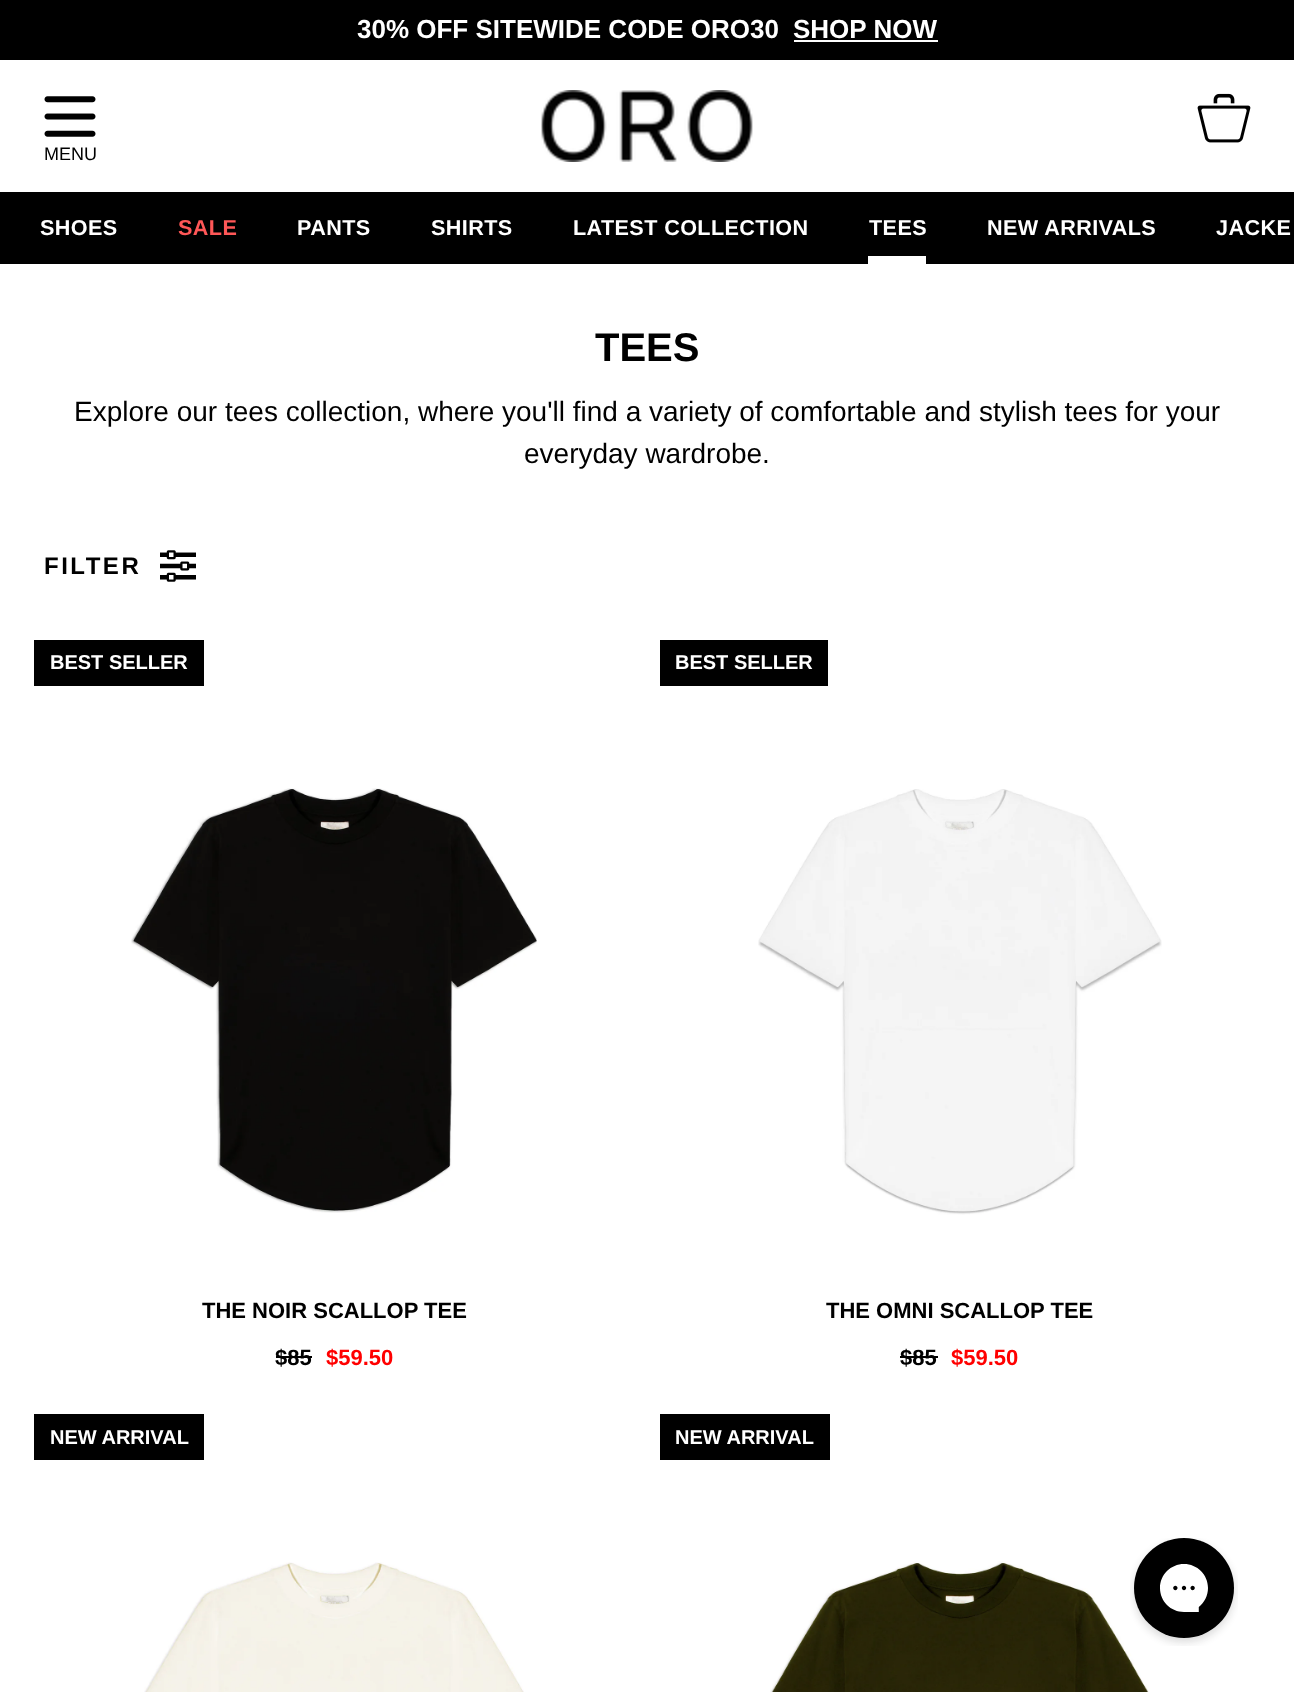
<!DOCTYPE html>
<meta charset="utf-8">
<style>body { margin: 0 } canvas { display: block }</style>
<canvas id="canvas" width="1294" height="1692"></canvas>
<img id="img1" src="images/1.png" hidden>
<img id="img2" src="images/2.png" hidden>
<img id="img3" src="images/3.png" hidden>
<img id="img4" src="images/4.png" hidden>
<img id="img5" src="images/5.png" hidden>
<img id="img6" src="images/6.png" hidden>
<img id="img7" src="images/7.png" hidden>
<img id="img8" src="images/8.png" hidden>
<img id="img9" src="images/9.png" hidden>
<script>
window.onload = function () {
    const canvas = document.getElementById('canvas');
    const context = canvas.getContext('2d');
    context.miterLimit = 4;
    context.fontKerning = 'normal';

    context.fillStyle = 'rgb(255, 255, 255)';
    context.fillRect(0, 0, 1294, 1692);
    context.fillStyle = 'rgb(0, 0, 0)';
    context.fillRect(0, 0, 1294, 60);
    context.fillStyle = 'rgb(255, 255, 255)';
    context.fillRect(794, 40, 144, 2);
    context.drawImage(document.getElementById('img1'), 541, 90, 212, 72);
    context.drawImage(document.getElementById('img2'), 1197, 93, 54, 50);
    context.drawImage(document.getElementById('img3'), 44, 96, 52, 41);
    context.fillStyle = 'rgb(0, 0, 0)';
    context.fillRect(0, 192, 1294, 72);
    context.fillStyle = 'rgb(255, 255, 255)';
    context.fillRect(868, 256, 58, 8);
    context.drawImage(document.getElementById('img4'), 160, 550, 36, 32);
    context.fillStyle = 'rgb(0, 0, 0)';
    context.fillRect(34, 640, 170, 46);
    context.drawImage(document.getElementById('img5'), 131, 788, 406, 425);
    context.fillRect(276, 1356, 36, 2);
    context.fillRect(660, 640, 168, 46);
    context.drawImage(document.getElementById('img6'), 758, 789, 404, 426);
    context.fillRect(900, 1356, 38, 2);
    context.fillRect(34, 1414, 170, 46);
    context.drawImage(document.getElementById('img7'), 144, 1562, 380, 130);
    context.fillRect(660, 1414, 170, 46);
    context.drawImage(document.getElementById('img8'), 770, 1561, 379, 131);
    context.drawImage(document.getElementById('img9'), 1130, 1538, 108, 108);
    context.font = 'bold 26px Liberation Sans';
    context.fillStyle = 'rgb(255, 255, 255)';
    context.fillText('30% OFF SITEWIDE CODE ORO30', 357, 38);
    context.fillText('SHOP NOW', 793, 38);
    context.font = '18px Liberation Sans';
    context.fillStyle = 'rgb(0, 0, 0)';
    context.fillText('MENU', 44, 160);
    context.letterSpacing = '0.4px';
    context.font = 'bold 21.6px Liberation Sans';
    context.fillStyle = 'rgb(255, 255, 255)';
    context.fillText('SHOES', 40, 235);
    context.fillStyle = 'rgb(255, 87, 87)';
    context.fillText('SALE', 178, 235);
    context.fillStyle = 'rgb(255, 255, 255)';
    context.fillText('PANTS', 297, 235);
    context.fillText('SHIRTS', 431, 235);
    context.fillText('LATEST COLLECTION', 573, 235);
    context.fillText('TEES', 869, 235);
    context.fillText('NEW ARRIVALS', 987, 235);
    context.fillText('JACKE', 1216, 235);
    context.letterSpacing = '0px';
    context.font = 'bold 40px Liberation Sans';
    context.fillStyle = 'rgb(0, 0, 0)';
    context.fillText('TEES', 595, 361);
    context.font = '28px Liberation Sans';
    context.fillText('Explore our tees collection, where you\'ll find a variety of comfortable and stylish tees for your', 74, 421);
    context.fillText('everyday wardrobe.', 524, 463);
    context.letterSpacing = '2.5px';
    context.font = 'bold 24px Liberation Sans';
    context.fillText('FILTER', 44, 574);
    context.letterSpacing = '0px';
    context.font = 'bold 20px Liberation Sans';
    context.fillStyle = 'rgb(255, 255, 255)';
    context.fillText('BEST SELLER', 50, 669);
    context.font = 'bold 22px Liberation Sans';
    context.fillStyle = 'rgb(0, 0, 0)';
    context.fillText('THE NOIR SCALLOP TEE', 202, 1318);
    context.fillText('$85', 275, 1365);
    context.fillStyle = 'rgb(255, 0, 0)';
    context.fillText('$59.50', 326, 1365);
    context.font = 'bold 20px Liberation Sans';
    context.fillStyle = 'rgb(255, 255, 255)';
    context.fillText('BEST SELLER', 675, 669);
    context.font = 'bold 22px Liberation Sans';
    context.fillStyle = 'rgb(0, 0, 0)';
    context.fillText('THE OMNI SCALLOP TEE', 826, 1318);
    context.fillText('$85', 900, 1365);
    context.fillStyle = 'rgb(255, 0, 0)';
    context.fillText('$59.50', 951, 1365);
    context.font = 'bold 20px Liberation Sans';
    context.fillStyle = 'rgb(255, 255, 255)';
    context.fillText('NEW ARRIVAL', 50, 1444);
    context.fillText('NEW ARRIVAL', 675, 1444);
};
</script>
